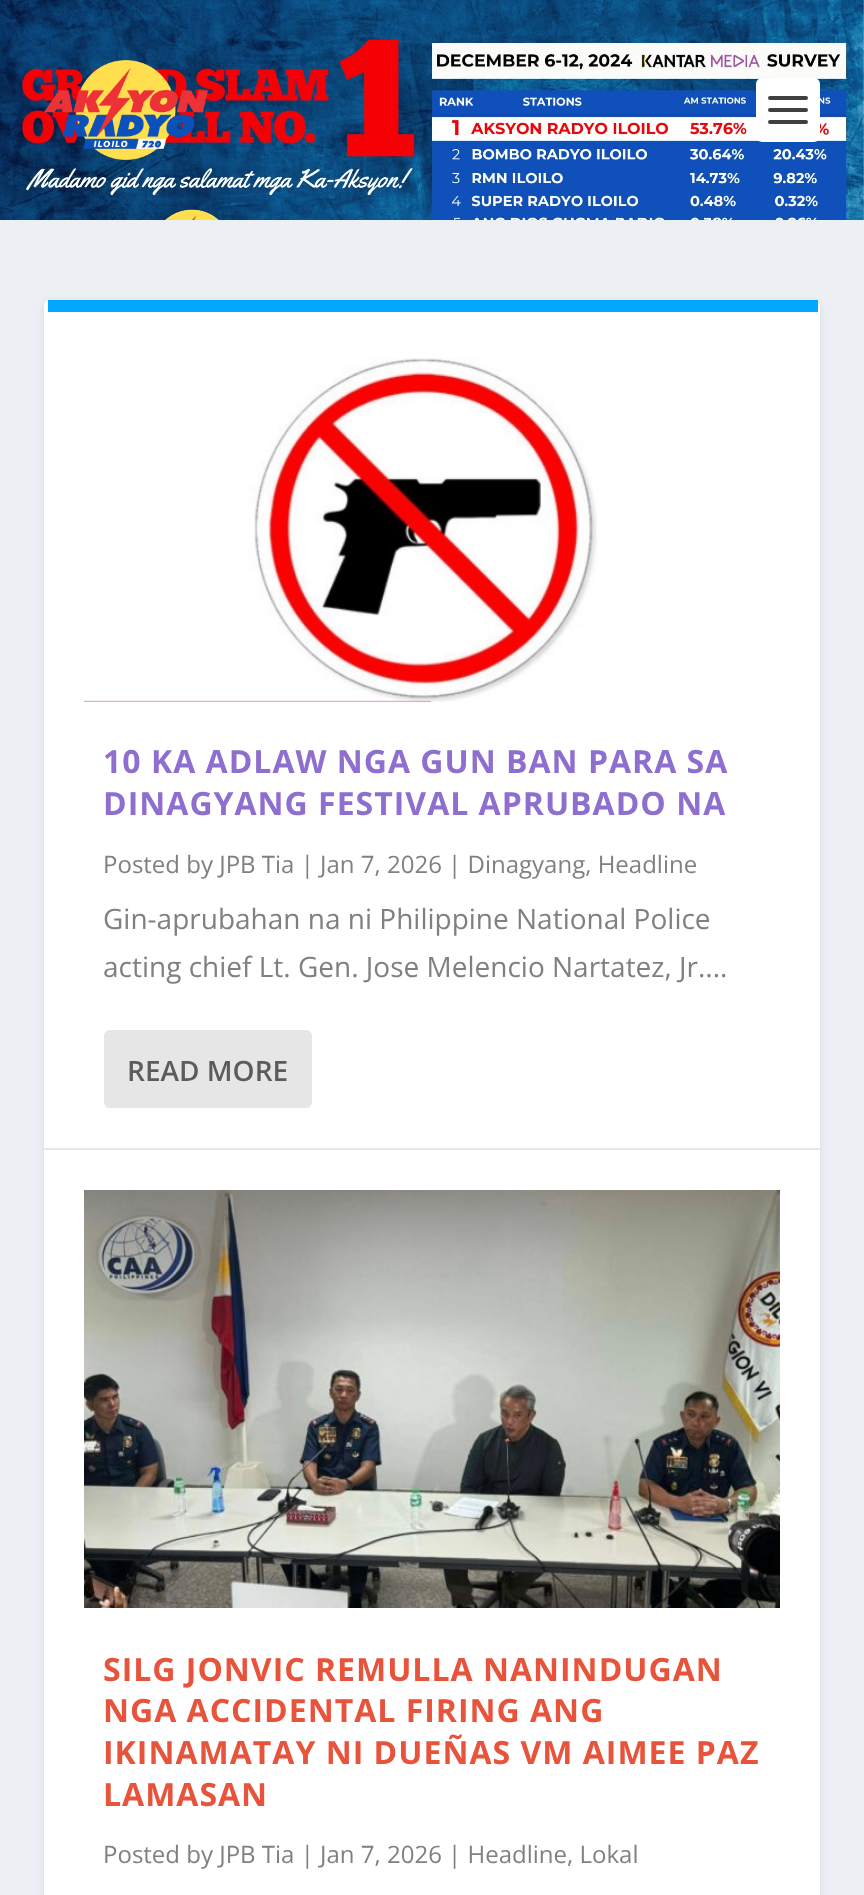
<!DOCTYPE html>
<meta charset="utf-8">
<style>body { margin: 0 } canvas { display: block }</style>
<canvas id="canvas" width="864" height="1895"></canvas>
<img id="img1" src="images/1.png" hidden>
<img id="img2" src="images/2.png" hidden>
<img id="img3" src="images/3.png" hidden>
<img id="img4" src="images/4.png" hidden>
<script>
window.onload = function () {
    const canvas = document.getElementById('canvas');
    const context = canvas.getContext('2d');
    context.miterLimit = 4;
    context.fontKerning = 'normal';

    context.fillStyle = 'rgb(236, 240, 245)';
    context.fillRect(0, 0, 864, 1895);
    context.drawImage(document.getElementById('img1'), 0, 0, 864, 220);
    context.drawImage(document.getElementById('img2'), 44, 60, 164, 100);
    context.fillStyle = 'rgb(255, 255, 255)';
    context.beginPath();
    context.roundRect(756, 78, 64, 64, 6);
    context.fill();
    context.fillStyle = 'rgb(64, 64, 64)';
    context.beginPath();
    context.roundRect(768, 96, 40, 4, 2);
    context.fill();
    context.beginPath();
    context.roundRect(768, 108, 40, 4, 2);
    context.fill();
    context.beginPath();
    context.roundRect(768, 120, 40, 4, 2);
    context.fill();
    context.fillStyle = 'rgba(0, 0, 0, 0.1)';
    context.filter = 'blur(3px)';
    context.beginPath();
    context.roundRect(44, 302, 776, 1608, 6);
    context.fill();
    context.filter = 'none';
    context.fillStyle = 'rgb(255, 255, 255)';
    context.beginPath();
    context.roundRect(44, 300, 776, 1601, 6);
    context.fill();
    context.fillStyle = 'rgb(0, 168, 255)';
    context.fillRect(48, 300, 770, 12);
    context.fillStyle = 'rgb(230, 230, 230)';
    context.fillRect(44, 1148, 776, 2);
    context.drawImage(document.getElementById('img3'), 84, 358, 514, 344);
    context.beginPath();
    context.roundRect(104, 1030, 208, 78, 6);
    context.fill();
    context.drawImage(document.getElementById('img4'), 84, 1190, 696, 418);
    context.letterSpacing = '1px';
    context.font = 'bold 32px Open Sans';
    context.fillStyle = 'rgb(142, 110, 207)';
    context.fillText('10 KA ADLAW NGA GUN BAN PARA SA', 103, 773);
    context.fillText('DINAGYANG FESTIVAL APRUBADO NA', 103, 815);
    context.letterSpacing = '0px';
    context.font = '24px Open Sans';
    context.fillStyle = 'rgb(128, 128, 128)';
    context.fillText('Posted by JPB Tia | Jan 7, 2026 | Dinagyang, Headline', 103, 873);
    context.font = '28px Open Sans';
    context.fillText('Gin-aprubahan na ni Philippine National Police', 103, 929);
    context.fillText('acting chief Lt. Gen. Jose Melencio Nartatez, Jr....', 103, 977);
    context.font = '600 28px Open Sans';
    context.fillStyle = 'rgb(92, 92, 92)';
    context.fillText('READ MORE', 127, 1081);
    context.letterSpacing = '1px';
    context.font = 'bold 32px Open Sans';
    context.fillStyle = 'rgb(232, 83, 59)';
    context.fillText('SILG JONVIC REMULLA NANINDUGAN', 103, 1681);
    context.fillText('NGA ACCIDENTAL FIRING ANG', 103, 1722);
    context.fillText('IKINAMATAY NI DUEÑAS VM AIMEE PAZ', 103, 1764);
    context.fillText('LAMASAN', 103, 1806);
    context.letterSpacing = '0px';
    context.font = '24px Open Sans';
    context.fillStyle = 'rgb(128, 128, 128)';
    context.fillText('Posted by JPB Tia | Jan 7, 2026 | Headline, Lokal', 103, 1863);
};
</script>
